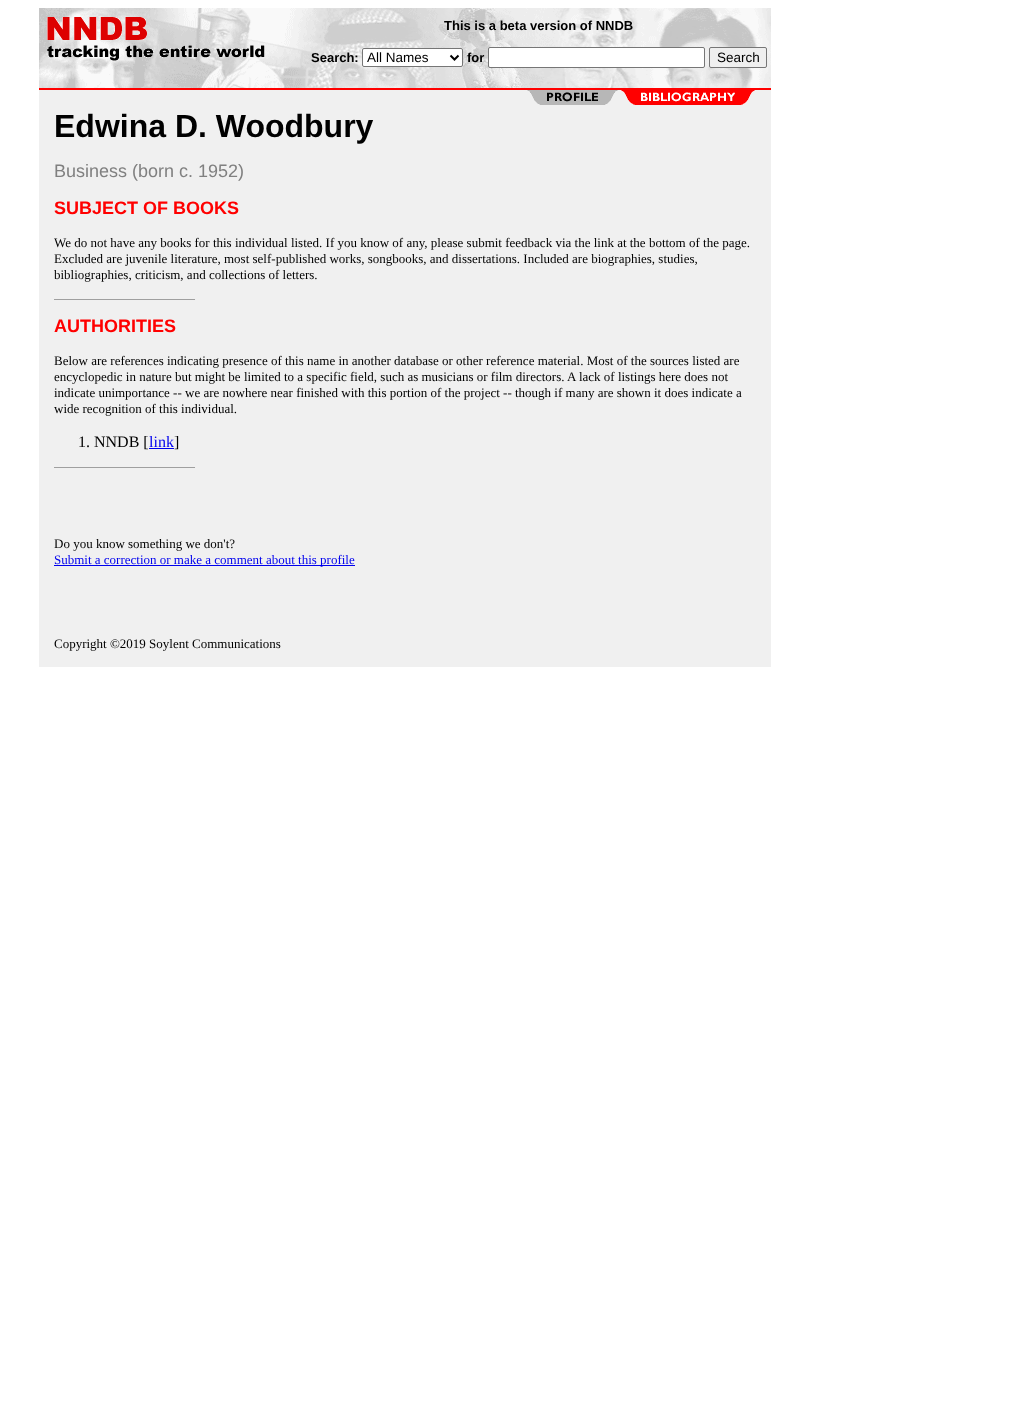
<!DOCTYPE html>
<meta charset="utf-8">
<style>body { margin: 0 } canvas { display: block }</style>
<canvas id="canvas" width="1015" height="1417"></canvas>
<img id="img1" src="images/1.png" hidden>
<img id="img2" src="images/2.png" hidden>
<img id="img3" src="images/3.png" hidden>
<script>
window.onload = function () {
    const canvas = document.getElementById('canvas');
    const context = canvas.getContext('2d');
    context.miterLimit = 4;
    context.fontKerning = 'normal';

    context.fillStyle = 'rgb(255, 255, 255)';
    context.fillRect(0, 0, 1015, 1417);
    context.drawImage(document.getElementById('img1'), 39, 8, 732, 80);
    context.drawImage(document.getElementById('img2'), 47, 17, 218, 44);
    context.beginPath();
    context.roundRect(362.5, 48.5, 100, 18, 1.5);
    context.fill();
    context.strokeStyle = 'rgb(118, 118, 118)';
    context.stroke();
    context.beginPath();
    context.moveTo(450.5, 55.5);
    context.lineTo(454.5, 59.5);
    context.lineTo(458.5, 55.5);
    context.strokeStyle = 'rgb(0, 0, 0)';
    context.lineWidth = 2;
    context.stroke();
    context.beginPath();
    context.roundRect(488.5, 47.5, 216, 20, 1.5);
    context.fill();
    context.strokeStyle = 'rgb(118, 118, 118)';
    context.lineWidth = 1;
    context.stroke();
    context.fillStyle = 'rgb(239, 239, 239)';
    context.beginPath();
    context.roundRect(709.5, 47.5, 57, 20, 1.5);
    context.fill();
    context.stroke();
    context.fillStyle = 'rgb(255, 0, 0)';
    context.fillRect(39, 88, 732, 2);
    context.fillStyle = 'rgb(240, 240, 240)';
    context.fillRect(39, 90, 732, 577);
    context.drawImage(document.getElementById('img3'), 527, 90, 228, 15);
    context.fillStyle = 'rgb(159, 159, 159)';
    context.fillRect(54, 299, 142, 1);
    context.fillStyle = 'rgb(238, 238, 238)';
    context.fillRect(195, 299, 1, 1);
    context.fillStyle = 'rgb(0, 0, 238)';
    context.fillRect(149, 448, 25, 1);
    context.fillStyle = 'rgb(159, 159, 159)';
    context.fillRect(54, 467, 142, 1);
    context.fillStyle = 'rgb(238, 238, 238)';
    context.fillRect(195, 467, 1, 1);
    context.fillStyle = 'rgb(0, 0, 238)';
    context.fillRect(54, 565, 301, 1);
    context.font = 'bold 13px Liberation Sans';
    context.fillStyle = 'rgb(0, 0, 0)';
    context.fillText('This is a beta version of NNDB', 444, 30);
    context.fillText('Search:', 311, 62);
    context.font = '13.5px Liberation Sans';
    context.fillText('All Names', 367, 62);
    context.font = 'bold 13px Liberation Sans';
    context.fillText('for', 467, 62);
    context.font = '13.5px Liberation Sans';
    context.fillText('Search', 717, 62);
    context.font = 'bold 32px Liberation Sans';
    context.fillText('Edwina D. Woodbury', 54, 137);
    context.font = '18px Liberation Sans';
    context.fillStyle = 'rgb(128, 128, 128)';
    context.fillText('Business (born c. 1952)', 54, 177);
    context.font = 'bold 18px Liberation Sans';
    context.fillStyle = 'rgb(255, 0, 0)';
    context.fillText('SUBJECT OF BOOKS', 54, 214);
    context.font = '13px Liberation Serif';
    context.fillStyle = 'rgb(0, 0, 0)';
    context.fillText('We do not have any books for this individual listed. If you know of any, please submit feedback via the link at the bottom of the page.', 54, 247);
    context.fillText('Excluded are juvenile literature, most self-published works, songbooks, and dissertations. Included are biographies, studies,', 54, 263);
    context.fillText('bibliographies, criticism, and collections of letters.', 54, 279);
    context.font = 'bold 18px Liberation Sans';
    context.fillStyle = 'rgb(255, 0, 0)';
    context.fillText('AUTHORITIES', 54, 332);
    context.font = '13px Liberation Serif';
    context.fillStyle = 'rgb(0, 0, 0)';
    context.fillText('Below are references indicating presence of this name in another database or other reference material. Most of the sources listed are', 54, 365);
    context.fillText('encyclopedic in nature but might be limited to a specific field, such as musicians or film directors. A lack of listings here does not', 54, 381);
    context.fillText('indicate unimportance -- we are nowhere near finished with this portion of the project -- though if many are shown it does indicate a', 54, 397);
    context.fillText('wide recognition of this individual.', 54, 413);
    context.font = '16px Liberation Serif';
    context.fillText('1. NNDB [', 78, 447);
    context.fillStyle = 'rgb(0, 0, 238)';
    context.fillText('link', 149, 447);
    context.fillStyle = 'rgb(0, 0, 0)';
    context.fillText(']', 174, 447);
    context.font = '13px Liberation Serif';
    context.fillText('Do you know something we don\'t?', 54, 548);
    context.fillStyle = 'rgb(0, 0, 238)';
    context.fillText('Submit a correction or make a comment about this profile', 54, 564);
    context.fillStyle = 'rgb(0, 0, 0)';
    context.fillText('Copyright ©2019 Soylent Communications', 54, 648);
};
</script>
